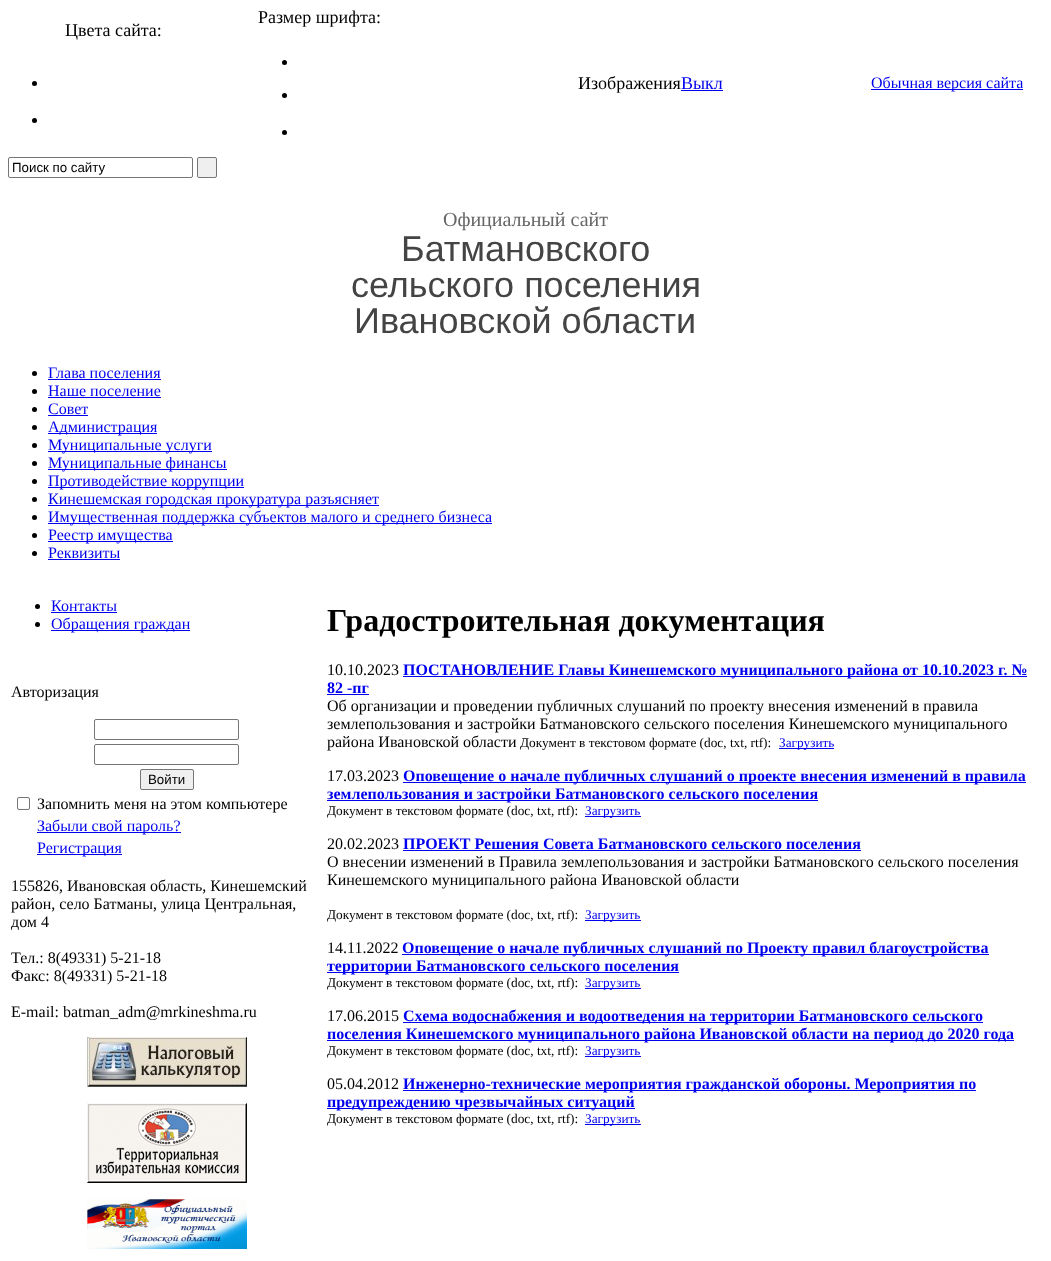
<!DOCTYPE html>
<meta charset="utf-8">
<style>body { margin: 0 } canvas { display: block }</style>
<canvas id="canvas" width="1051" height="1261"></canvas>
<img id="img1" src="images/1.png" hidden>
<img id="img2" src="images/2.png" hidden>
<img id="img3" src="images/3.png" hidden>
<script>
window.onload = function () {
    const canvas = document.getElementById('canvas');
    const context = canvas.getContext('2d');
    context.miterLimit = 4;
    context.fontKerning = 'normal';

    context.fillStyle = 'rgb(255, 255, 255)';
    context.fillRect(0, 0, 1051, 1261);
    context.fillStyle = 'rgb(0, 0, 0)';
    context.beginPath();
    context.arc(284.5, 62.5, 2.5, 0, 2 * Math.PI);
    context.fill();
    context.beginPath();
    context.arc(284.5, 95.5, 2.5, 0, 2 * Math.PI);
    context.fill();
    context.beginPath();
    context.arc(284.5, 132.5, 2.5, 0, 2 * Math.PI);
    context.fill();
    context.beginPath();
    context.arc(34.5, 83.5, 2.5, 0, 2 * Math.PI);
    context.fill();
    context.beginPath();
    context.arc(34.5, 120.5, 2.5, 0, 2 * Math.PI);
    context.fill();
    context.fillStyle = 'rgb(0, 0, 238)';
    context.fillRect(681, 90, 42, 1);
    context.fillRect(871, 89, 152, 1);
    context.beginPath();
    context.roundRect(8.5, 157.5, 184, 20, 1.5);
    context.strokeStyle = 'rgb(118, 118, 118)';
    context.stroke();
    context.fillStyle = 'rgb(239, 239, 239)';
    context.beginPath();
    context.roundRect(197.5, 157.5, 19, 20, 1.5);
    context.fill();
    context.stroke();
    context.fillStyle = 'rgb(0, 0, 0)';
    context.beginPath();
    context.arc(34.5, 373.5, 2.5, 0, 2 * Math.PI);
    context.fill();
    context.fillStyle = 'rgb(0, 0, 238)';
    context.fillRect(48, 379, 113, 1);
    context.fillStyle = 'rgb(0, 0, 0)';
    context.beginPath();
    context.arc(34.5, 391.5, 2.5, 0, 2 * Math.PI);
    context.fill();
    context.fillStyle = 'rgb(0, 0, 238)';
    context.fillRect(48, 397, 113, 1);
    context.fillStyle = 'rgb(0, 0, 0)';
    context.beginPath();
    context.arc(34.5, 409.5, 2.5, 0, 2 * Math.PI);
    context.fill();
    context.fillStyle = 'rgb(0, 0, 238)';
    context.fillRect(48, 415, 40, 1);
    context.fillStyle = 'rgb(0, 0, 0)';
    context.beginPath();
    context.arc(34.5, 427.5, 2.5, 0, 2 * Math.PI);
    context.fill();
    context.fillStyle = 'rgb(0, 0, 238)';
    context.fillRect(48, 433, 109, 1);
    context.fillStyle = 'rgb(0, 0, 0)';
    context.beginPath();
    context.arc(34.5, 445.5, 2.5, 0, 2 * Math.PI);
    context.fill();
    context.fillStyle = 'rgb(0, 0, 238)';
    context.fillRect(48, 451, 164, 1);
    context.fillStyle = 'rgb(0, 0, 0)';
    context.beginPath();
    context.arc(34.5, 463.5, 2.5, 0, 2 * Math.PI);
    context.fill();
    context.fillStyle = 'rgb(0, 0, 238)';
    context.fillRect(48, 469, 179, 1);
    context.fillStyle = 'rgb(0, 0, 0)';
    context.beginPath();
    context.arc(34.5, 481.5, 2.5, 0, 2 * Math.PI);
    context.fill();
    context.fillStyle = 'rgb(0, 0, 238)';
    context.fillRect(48, 487, 196, 1);
    context.fillStyle = 'rgb(0, 0, 0)';
    context.beginPath();
    context.arc(34.5, 499.5, 2.5, 0, 2 * Math.PI);
    context.fill();
    context.fillStyle = 'rgb(0, 0, 238)';
    context.fillRect(48, 505, 331, 1);
    context.fillStyle = 'rgb(0, 0, 0)';
    context.beginPath();
    context.arc(34.5, 517.5, 2.5, 0, 2 * Math.PI);
    context.fill();
    context.fillStyle = 'rgb(0, 0, 238)';
    context.fillRect(48, 523, 444, 1);
    context.fillStyle = 'rgb(0, 0, 0)';
    context.beginPath();
    context.arc(34.5, 535.5, 2.5, 0, 2 * Math.PI);
    context.fill();
    context.fillStyle = 'rgb(0, 0, 238)';
    context.fillRect(48, 541, 125, 1);
    context.fillStyle = 'rgb(0, 0, 0)';
    context.beginPath();
    context.arc(34.5, 553.5, 2.5, 0, 2 * Math.PI);
    context.fill();
    context.fillStyle = 'rgb(0, 0, 238)';
    context.fillRect(48, 559, 72, 1);
    context.fillStyle = 'rgb(0, 0, 0)';
    context.beginPath();
    context.arc(37.5, 606.5, 2.5, 0, 2 * Math.PI);
    context.fill();
    context.fillStyle = 'rgb(0, 0, 238)';
    context.fillRect(51, 612, 66, 1);
    context.fillStyle = 'rgb(0, 0, 0)';
    context.beginPath();
    context.arc(37.5, 624.5, 2.5, 0, 2 * Math.PI);
    context.fill();
    context.fillStyle = 'rgb(0, 0, 238)';
    context.fillRect(51, 630, 139, 1);
    context.beginPath();
    context.roundRect(94.5, 719.5, 144, 20, 1.5);
    context.stroke();
    context.beginPath();
    context.roundRect(94.5, 744.5, 144, 20, 1.5);
    context.stroke();
    context.fillStyle = 'rgb(239, 239, 239)';
    context.beginPath();
    context.roundRect(140.5, 769.5, 53, 20, 1.5);
    context.fill();
    context.stroke();
    context.beginPath();
    context.roundRect(17.5, 797.5, 12, 12, 1.5);
    context.stroke();
    context.fillStyle = 'rgb(0, 0, 238)';
    context.fillRect(37, 832, 144, 1);
    context.fillRect(37, 854, 85, 1);
    context.drawImage(document.getElementById('img1'), 87, 1037, 160, 50);
    context.drawImage(document.getElementById('img2'), 87, 1103, 160, 80);
    context.drawImage(document.getElementById('img3'), 87, 1199, 160, 50);
    context.fillRect(403, 676, 624, 1);
    context.fillRect(327, 694, 42, 1);
    context.fillRect(779, 748, 55, 1);
    context.fillRect(403, 782, 623, 1);
    context.fillRect(327, 800, 491, 1);
    context.fillRect(585, 816, 56, 1);
    context.fillRect(403, 850, 458, 1);
    context.fillRect(585, 920, 56, 1);
    context.fillRect(402, 954, 587, 1);
    context.fillRect(327, 972, 352, 1);
    context.fillRect(585, 988, 56, 1);
    context.fillRect(403, 1022, 580, 1);
    context.fillRect(327, 1040, 687, 1);
    context.fillRect(585, 1056, 56, 1);
    context.fillRect(403, 1090, 573, 1);
    context.fillRect(327, 1108, 308, 1);
    context.fillRect(585, 1124, 56, 1);
    context.font = '18px Liberation Serif';
    context.fillStyle = 'rgb(0, 0, 0)';
    context.fillText('Размер шрифта:', 258, 23);
    context.fillText('Цвета сайта:', 65, 36);
    context.fillText('Изображения', 578, 89);
    context.fillStyle = 'rgb(0, 0, 238)';
    context.fillText('Выкл', 681, 89);
    context.font = '16px Liberation Serif';
    context.fillText('Обычная версия сайта', 871, 88);
    context.font = '13.3px Liberation Sans';
    context.fillStyle = 'rgb(0, 0, 0)';
    context.fillText('Поиск по сайту', 12, 172);
    context.font = '20px Liberation Serif';
    context.fillStyle = 'rgb(102, 102, 102)';
    context.fillText('Официальный сайт', 443, 226);
    context.font = '36px Liberation Sans';
    context.fillStyle = 'rgb(68, 68, 68)';
    context.fillText('Батмановского', 401, 261);
    context.fillText('сельского поселения', 351, 297);
    context.fillText('Ивановской области', 354, 333);
    context.font = '16px Liberation Serif';
    context.fillStyle = 'rgb(0, 0, 238)';
    context.fillText('Глава поселения', 48, 378);
    context.fillText('Наше поселение', 48, 396);
    context.fillText('Совет', 48, 414);
    context.fillText('Администрация', 48, 432);
    context.fillText('Муниципальные услуги', 48, 450);
    context.fillText('Муниципальные финансы', 48, 468);
    context.fillText('Противодействие коррупции', 48, 486);
    context.fillText('Кинешемская городская прокуратура разъясняет', 48, 504);
    context.fillText('Имущественная поддержка субъектов малого и среднего бизнеса', 48, 522);
    context.fillText('Реестр имущества', 48, 540);
    context.fillText('Реквизиты', 48, 558);
    context.fillText('Контакты', 51, 611);
    context.fillText('Обращения граждан', 51, 629);
    context.fillStyle = 'rgb(0, 0, 0)';
    context.fillText('Авторизация', 11, 697);
    context.font = '13.3px Liberation Sans';
    context.fillText('Войти', 148, 784);
    context.font = '16px Liberation Serif';
    context.fillText('Запомнить меня на этом компьютере', 37, 809);
    context.fillStyle = 'rgb(0, 0, 238)';
    context.fillText('Забыли свой пароль?', 37, 831);
    context.fillText('Регистрация', 37, 853);
    context.fillStyle = 'rgb(0, 0, 0)';
    context.fillText('155826, Ивановская область, Кинешемский', 11, 891);
    context.fillText('район, село Батманы, улица Центральная,', 11, 909);
    context.fillText('дом 4', 11, 927);
    context.fillText('Тел.: 8(49331) 5-21-18', 11, 963);
    context.fillText('Факс: 8(49331) 5-21-18', 11, 981);
    context.fillText('E-mail: batman_adm@mrkineshma.ru', 11, 1017);
    context.font = 'bold 32px Liberation Serif';
    context.fillText('Градостроительная документация', 327, 631);
    context.font = '16px Liberation Serif';
    context.fillText('10.10.2023', 327, 675);
    context.font = 'bold 16px Liberation Serif';
    context.fillStyle = 'rgb(0, 0, 238)';
    context.fillText('ПОСТАНОВЛЕНИЕ Главы Кинешемского муниципального района от 10.10.2023 г. №', 403, 675);
    context.fillText('82 -пг', 327, 693);
    context.font = '16px Liberation Serif';
    context.fillStyle = 'rgb(0, 0, 0)';
    context.fillText('Об организации и проведении публичных слушаний по проекту внесения изменений в правила', 327, 711);
    context.fillText('землепользования и застройки Батмановского сельского поселения Кинешемского муниципального', 327, 729);
    context.fillText('района Ивановской области', 327, 747);
    context.font = '13.3px Liberation Serif';
    context.fillText('Документ в текстовом формате (doc, txt, rtf):', 520, 747);
    context.fillStyle = 'rgb(0, 0, 238)';
    context.fillText('Загрузить', 779, 747);
    context.font = '16px Liberation Serif';
    context.fillStyle = 'rgb(0, 0, 0)';
    context.fillText('17.03.2023', 327, 781);
    context.font = 'bold 16px Liberation Serif';
    context.fillStyle = 'rgb(0, 0, 238)';
    context.fillText('Оповещение о начале публичных слушаний о проекте внесения изменений в правила', 403, 781);
    context.fillText('землепользования и застройки Батмановского сельского поселения', 327, 799);
    context.font = '13.3px Liberation Serif';
    context.fillStyle = 'rgb(0, 0, 0)';
    context.fillText('Документ в текстовом формате (doc, txt, rtf):', 327, 815);
    context.fillStyle = 'rgb(0, 0, 238)';
    context.fillText('Загрузить', 585, 815);
    context.font = '16px Liberation Serif';
    context.fillStyle = 'rgb(0, 0, 0)';
    context.fillText('20.02.2023', 327, 849);
    context.font = 'bold 16px Liberation Serif';
    context.fillStyle = 'rgb(0, 0, 238)';
    context.fillText('ПРОЕКТ Решения Совета Батмановского сельского поселения', 403, 849);
    context.font = '16px Liberation Serif';
    context.fillStyle = 'rgb(0, 0, 0)';
    context.fillText('О внесении изменений в Правила землепользования и застройки Батмановского сельского поселения', 327, 867);
    context.fillText('Кинешемского муниципального района Ивановской области', 327, 885);
    context.font = '13.3px Liberation Serif';
    context.fillText('Документ в текстовом формате (doc, txt, rtf):', 327, 919);
    context.fillStyle = 'rgb(0, 0, 238)';
    context.fillText('Загрузить', 585, 919);
    context.font = '16px Liberation Serif';
    context.fillStyle = 'rgb(0, 0, 0)';
    context.fillText('14.11.2022', 327, 953);
    context.font = 'bold 16px Liberation Serif';
    context.fillStyle = 'rgb(0, 0, 238)';
    context.fillText('Оповещение о начале публичных слушаний по Проекту правил благоустройства', 402, 953);
    context.fillText('территории Батмановского сельского поселения', 327, 971);
    context.font = '13.3px Liberation Serif';
    context.fillStyle = 'rgb(0, 0, 0)';
    context.fillText('Документ в текстовом формате (doc, txt, rtf):', 327, 987);
    context.fillStyle = 'rgb(0, 0, 238)';
    context.fillText('Загрузить', 585, 987);
    context.font = '16px Liberation Serif';
    context.fillStyle = 'rgb(0, 0, 0)';
    context.fillText('17.06.2015', 327, 1021);
    context.font = 'bold 16px Liberation Serif';
    context.fillStyle = 'rgb(0, 0, 238)';
    context.fillText('Схема водоснабжения и водоотведения на территории Батмановского сельского', 403, 1021);
    context.fillText('поселения Кинешемского муниципального района Ивановской области на период до 2020 года', 327, 1039);
    context.font = '13.3px Liberation Serif';
    context.fillStyle = 'rgb(0, 0, 0)';
    context.fillText('Документ в текстовом формате (doc, txt, rtf):', 327, 1055);
    context.fillStyle = 'rgb(0, 0, 238)';
    context.fillText('Загрузить', 585, 1055);
    context.font = '16px Liberation Serif';
    context.fillStyle = 'rgb(0, 0, 0)';
    context.fillText('05.04.2012', 327, 1089);
    context.font = 'bold 16px Liberation Serif';
    context.fillStyle = 'rgb(0, 0, 238)';
    context.fillText('Инженерно-технические мероприятия гражданской обороны. Мероприятия по', 403, 1089);
    context.fillText('предупреждению чрезвычайных ситуаций', 327, 1107);
    context.font = '13.3px Liberation Serif';
    context.fillStyle = 'rgb(0, 0, 0)';
    context.fillText('Документ в текстовом формате (doc, txt, rtf):', 327, 1123);
    context.fillStyle = 'rgb(0, 0, 238)';
    context.fillText('Загрузить', 585, 1123);
};
</script>
